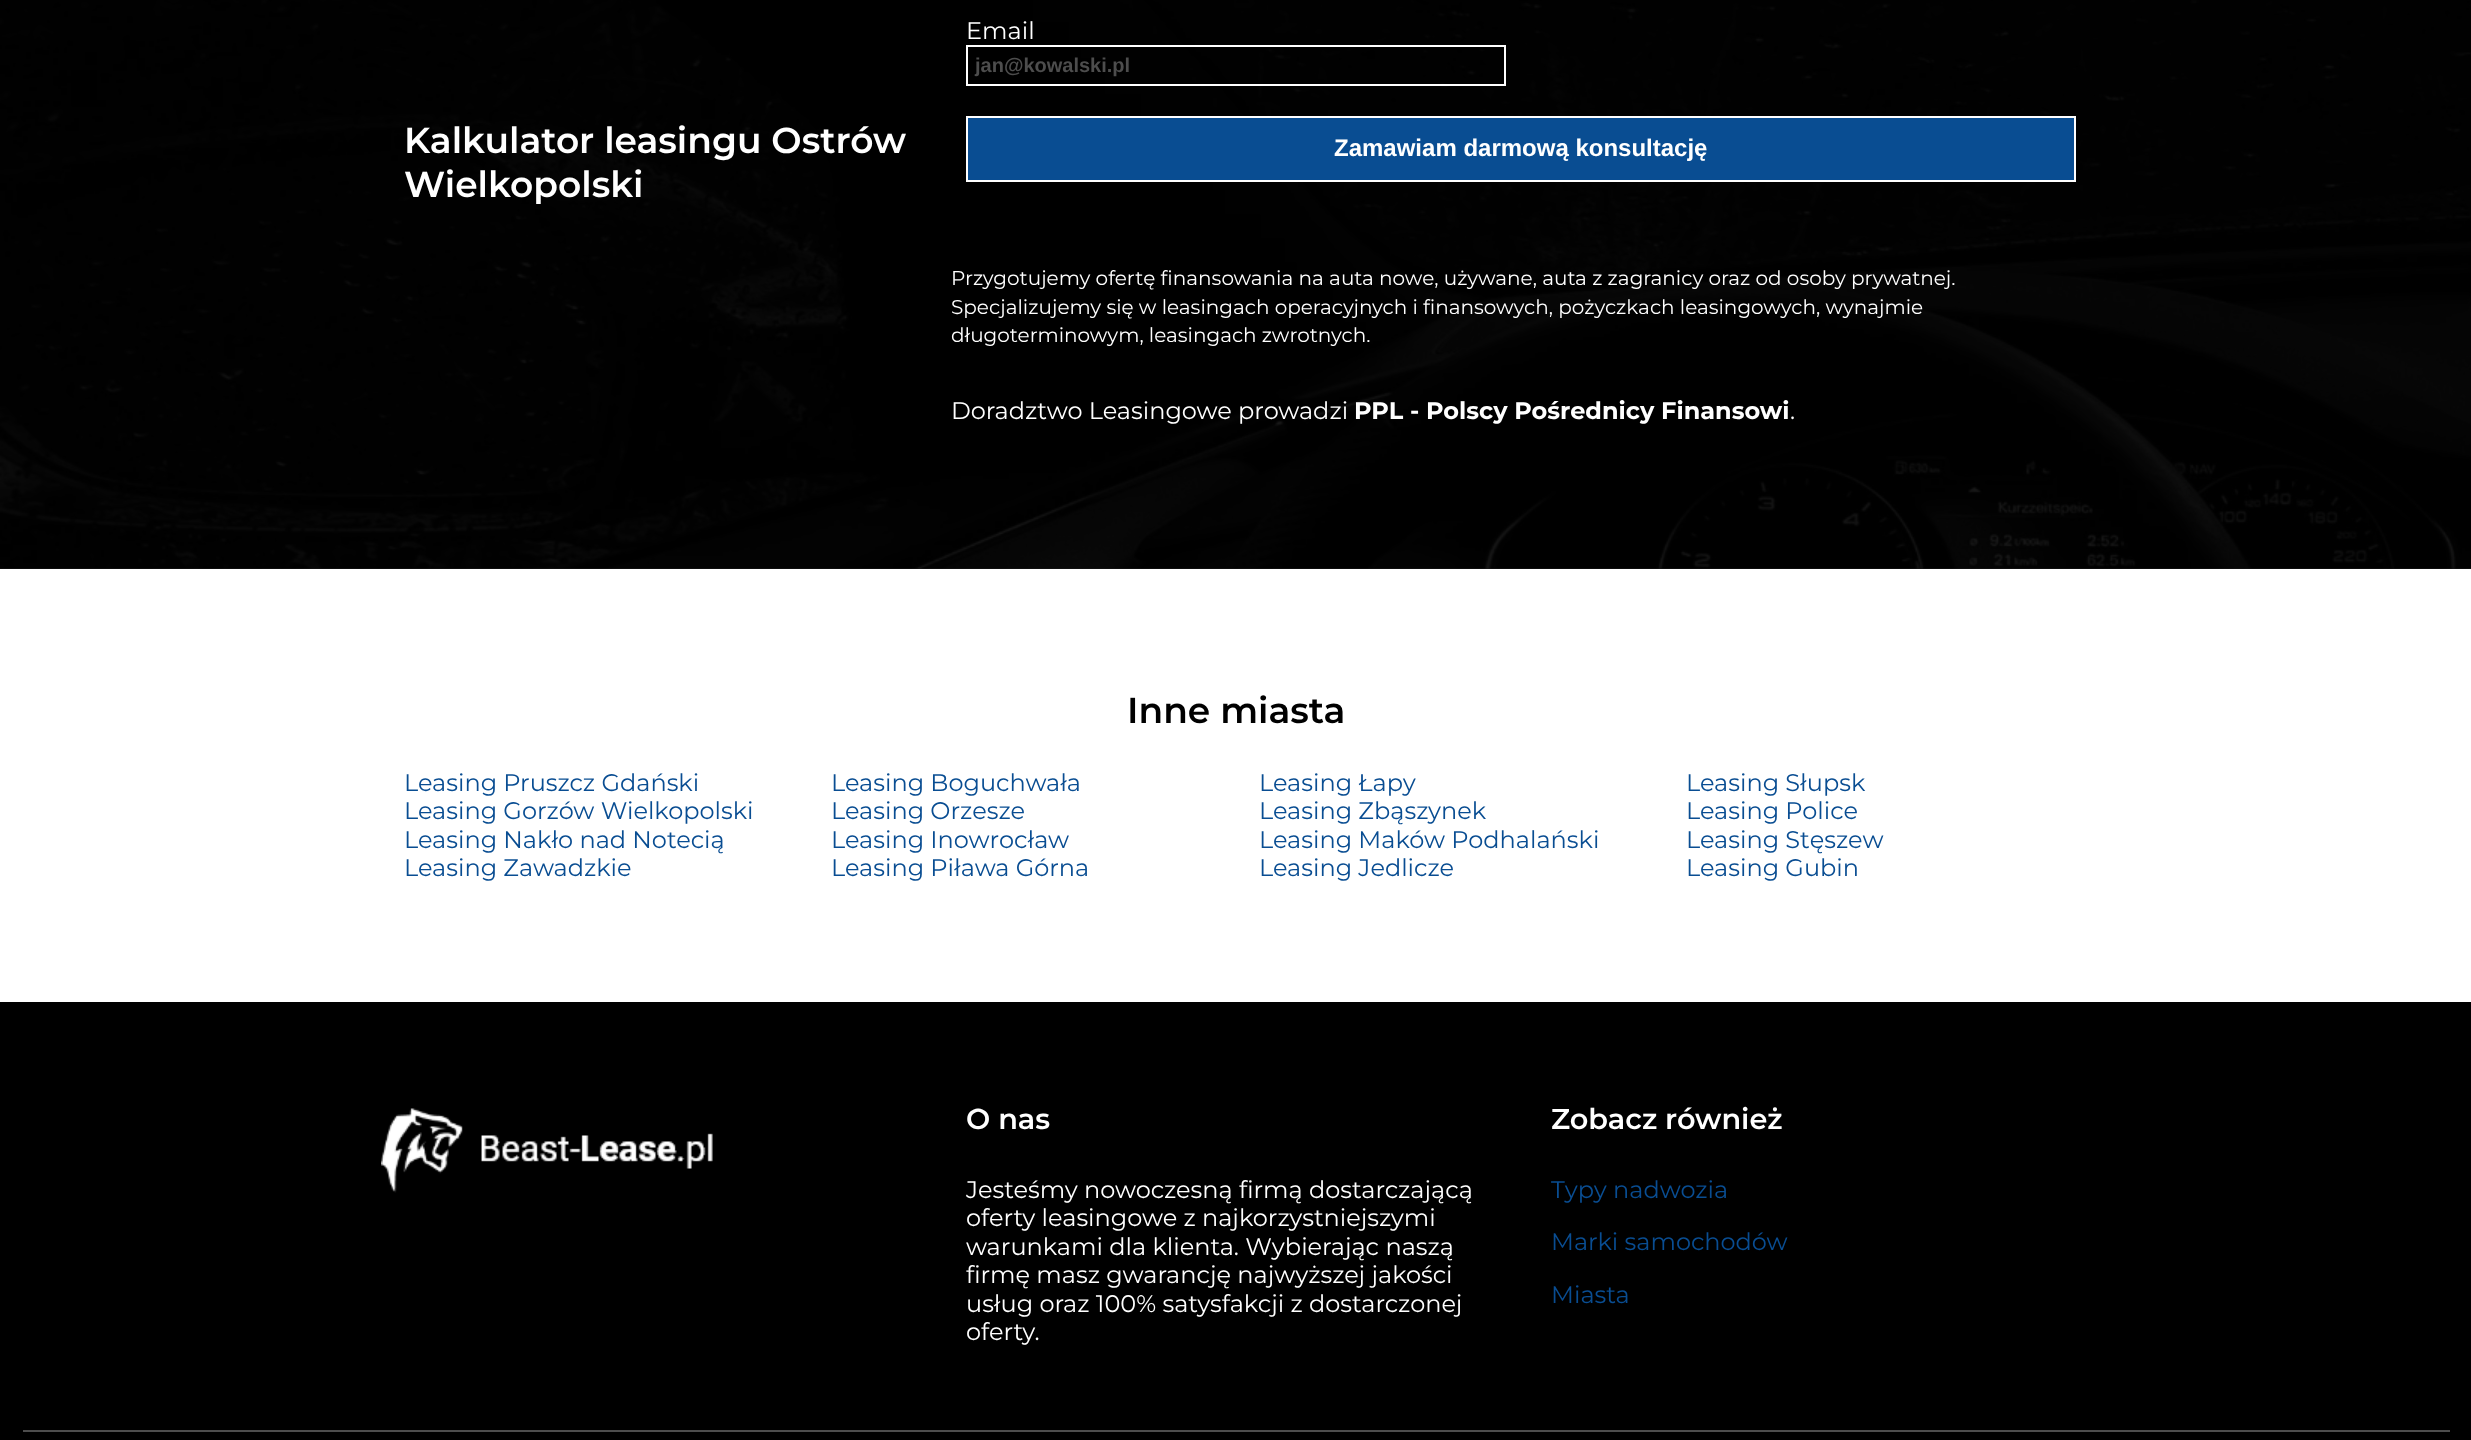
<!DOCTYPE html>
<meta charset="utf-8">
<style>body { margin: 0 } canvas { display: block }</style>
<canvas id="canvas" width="2471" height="1440"></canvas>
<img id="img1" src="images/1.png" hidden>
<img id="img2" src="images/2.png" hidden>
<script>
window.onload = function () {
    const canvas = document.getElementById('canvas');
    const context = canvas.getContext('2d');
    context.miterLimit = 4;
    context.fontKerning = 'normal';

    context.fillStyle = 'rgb(255, 255, 255)';
    context.fillRect(0, 0, 2471, 1440);
    context.fillStyle = 'rgb(25, 25, 25)';
    context.fillRect(0, 568, 2471, 1);
    context.drawImage(document.getElementById('img1'), 0, 0, 2471, 569);
    context.strokeStyle = 'rgb(255, 255, 255)';
    context.lineWidth = 2;
    context.strokeRect(967, 46, 538, 39);
    context.fillStyle = 'rgb(9, 77, 146)';
    context.beginPath();
    context.rect(967, 117, 1108, 64);
    context.fill();
    context.stroke();
    context.fillStyle = 'rgb(0, 0, 0)';
    context.fillRect(0, 1002, 2471, 438);
    context.drawImage(document.getElementById('img2'), 381, 1108, 332, 85);
    context.fillStyle = 'rgb(77, 77, 77)';
    context.fillRect(23, 1430, 2427, 2);
    context.font = '600 36px Montserrat';
    context.fillStyle = 'rgb(255, 255, 255)';
    context.fillText('Kalkulator leasingu Ostrów', 404, 153);
    context.fillText('Wielkopolski', 404, 197);
    context.font = '24px Montserrat';
    context.fillText('Email', 966, 39);
    context.font = 'bold 20px Liberation Sans';
    context.fillStyle = 'rgb(77, 77, 77)';
    context.fillText('jan@kowalski.pl', 975, 72);
    context.font = 'bold 24px Liberation Sans';
    context.fillStyle = 'rgb(255, 255, 255)';
    context.fillText('Zamawiam darmową konsultację', 1334, 156);
    context.font = '20px Montserrat';
    context.fillText('Przygotujemy ofertę finansowania na auta nowe, używane, auta z zagranicy oraz od osoby prywatnej.', 951, 285);
    context.fillText('Specjalizujemy się w leasingach operacyjnych i finansowych, pożyczkach leasingowych, wynajmie', 951, 314);
    context.fillText('długoterminowym, leasingach zwrotnych.', 951, 342);
    context.font = '24px Montserrat';
    context.fillText('Doradztwo Leasingowe prowadzi', 951, 419);
    context.font = 'bold 24px Montserrat';
    context.fillText('PPL - Polscy Pośrednicy Finansowi', 1354, 419);
    context.font = '24px Montserrat';
    context.fillText('.', 1790, 419);
    context.font = '600 36px Montserrat';
    context.fillStyle = 'rgb(0, 0, 0)';
    context.fillText('Inne miasta', 1127, 723);
    context.font = '24px Montserrat';
    context.fillStyle = 'rgb(9, 77, 146)';
    context.fillText('Leasing Pruszcz Gdański', 404, 791);
    context.fillText('Leasing Boguchwała', 831, 791);
    context.fillText('Leasing Łapy', 1259, 791);
    context.fillText('Leasing Słupsk', 1686, 791);
    context.fillText('Leasing Gorzów Wielkopolski', 404, 819);
    context.fillText('Leasing Orzesze', 831, 819);
    context.fillText('Leasing Zbąszynek', 1259, 819);
    context.fillText('Leasing Police', 1686, 819);
    context.fillText('Leasing Nakło nad Notecią', 404, 848);
    context.fillText('Leasing Inowrocław', 831, 848);
    context.fillText('Leasing Maków Podhalański', 1259, 848);
    context.fillText('Leasing Stęszew', 1686, 848);
    context.fillText('Leasing Zawadzkie', 404, 876);
    context.fillText('Leasing Piława Górna', 831, 876);
    context.fillText('Leasing Jedlicze', 1259, 876);
    context.fillText('Leasing Gubin', 1686, 876);
    context.font = '600 28.75px Montserrat';
    context.fillStyle = 'rgb(255, 255, 255)';
    context.fillText('O nas', 966, 1129);
    context.font = '24px Montserrat';
    context.fillText('Jesteśmy nowoczesną firmą dostarczającą', 966, 1198);
    context.fillText('oferty leasingowe z najkorzystniejszymi', 966, 1226);
    context.fillText('warunkami dla klienta. Wybierając naszą', 966, 1255);
    context.fillText('firmę masz gwarancję najwyższej jakości', 966, 1283);
    context.fillText('usług oraz 100% satysfakcji z dostarczonej', 966, 1312);
    context.fillText('oferty.', 966, 1340);
    context.font = '600 28.75px Montserrat';
    context.fillText('Zobacz również', 1551, 1129);
    context.font = '24px Montserrat';
    context.fillStyle = 'rgb(9, 77, 146)';
    context.fillText('Typy nadwozia', 1551, 1198);
    context.fillText('Marki samochodów', 1551, 1250);
    context.fillText('Miasta', 1551, 1303);
};
</script>
